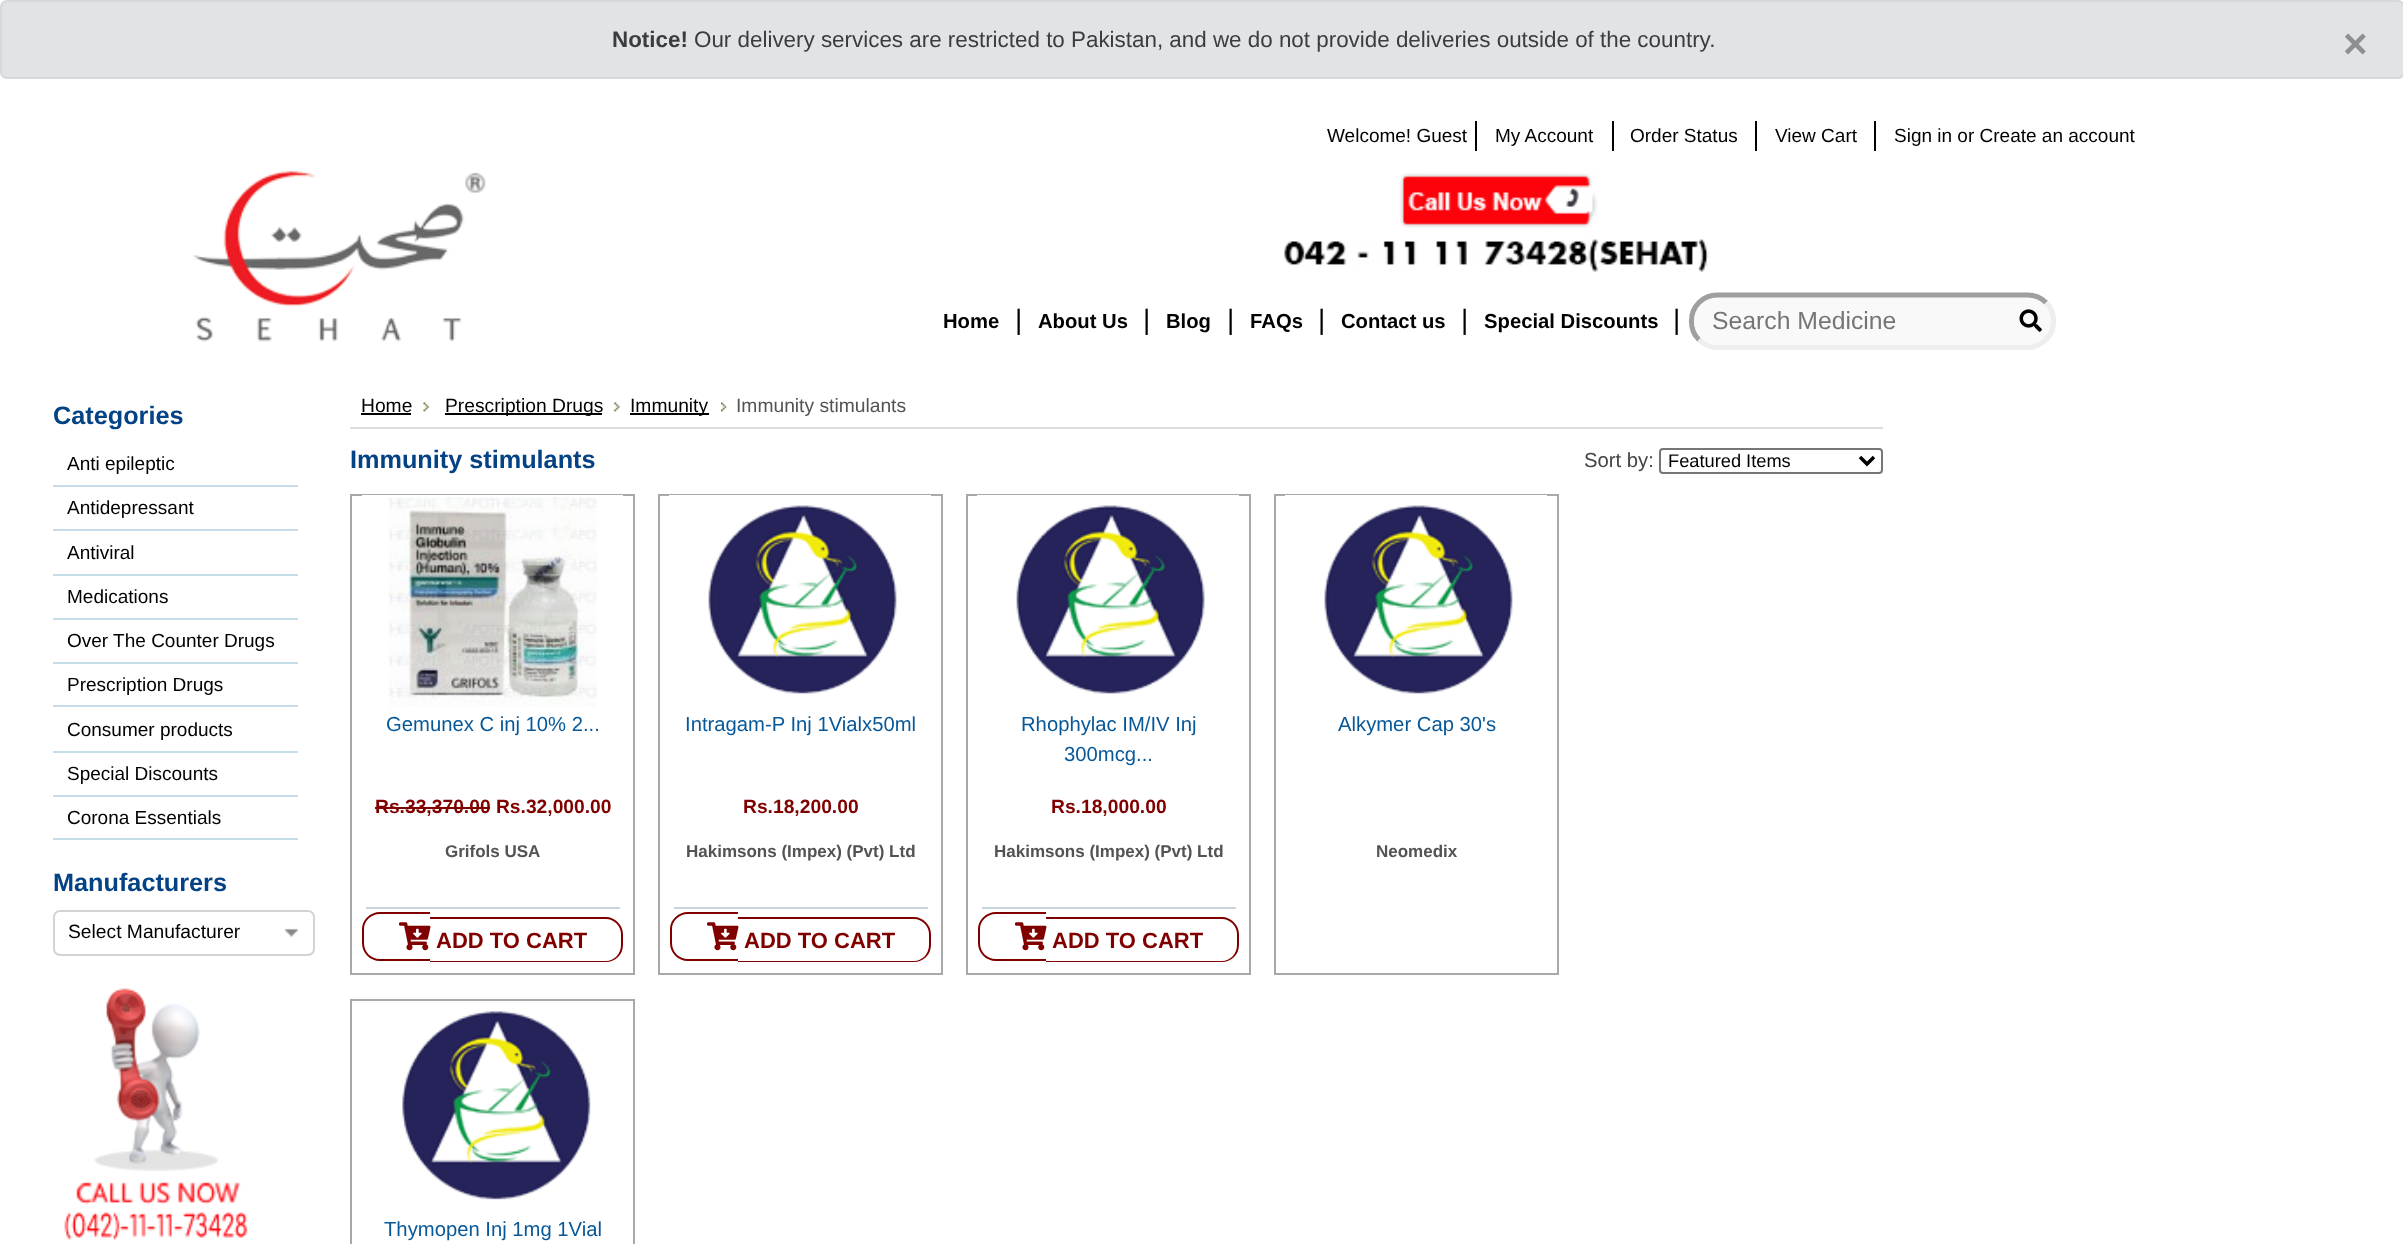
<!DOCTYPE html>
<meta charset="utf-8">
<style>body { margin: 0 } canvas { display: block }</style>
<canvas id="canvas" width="2403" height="1244"></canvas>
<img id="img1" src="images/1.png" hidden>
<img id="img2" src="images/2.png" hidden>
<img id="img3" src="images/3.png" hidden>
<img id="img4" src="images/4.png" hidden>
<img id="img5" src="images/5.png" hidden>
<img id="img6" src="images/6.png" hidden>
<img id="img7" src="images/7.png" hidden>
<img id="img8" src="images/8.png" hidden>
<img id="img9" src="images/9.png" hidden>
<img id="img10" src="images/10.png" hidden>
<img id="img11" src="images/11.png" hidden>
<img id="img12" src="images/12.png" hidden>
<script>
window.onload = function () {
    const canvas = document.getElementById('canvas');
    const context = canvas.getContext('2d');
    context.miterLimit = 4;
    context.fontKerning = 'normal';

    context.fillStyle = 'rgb(255, 255, 255)';
    context.fillRect(0, 0, 2403, 1244);
    context.fillStyle = 'rgb(226, 227, 229)';
    context.beginPath();
    context.roundRect(1, 1, 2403, 77, 6);
    context.fill();
    context.strokeStyle = 'rgb(214, 216, 219)';
    context.lineWidth = 2;
    context.stroke();
    context.fillStyle = 'rgb(0, 0, 0)';
    context.fillRect(1475, 121, 2, 30);
    context.fillRect(1612, 121, 2, 30);
    context.fillRect(1755, 121, 2, 30);
    context.fillRect(1874, 121, 2, 30);
    context.drawImage(document.getElementById('img1'), 192, 171, 294, 171);
    context.drawImage(document.getElementById('img2'), 1284, 172, 425, 100);
    context.fillStyle = 'rgb(249, 249, 249)';
    context.beginPath();
    context.roundRect(1689, 292, 367, 58, 29);
    context.fill();
    context.beginPath();
    context.moveTo(2046, 302.5);
    context.bezierCurveTo(2051, 307.5, 2053.5, 314, 2053.5, 321);
    context.bezierCurveTo(2053.5, 328, 2051, 335, 2046, 339.5);
    context.bezierCurveTo(2041, 344.5, 2034.5, 347.5, 2027.5, 347.5);
    context.lineTo(1717.5, 347.5);
    context.bezierCurveTo(1710.5, 347.5, 1704, 344.5, 1699, 339.5);
    context.strokeStyle = 'rgb(238, 238, 238)';
    context.lineWidth = 5.2;
    context.stroke();
    context.beginPath();
    context.moveTo(1699, 339.5);
    context.bezierCurveTo(1694, 335, 1691.5, 328, 1691.5, 321);
    context.bezierCurveTo(1691.5, 314, 1694, 307.5, 1699, 302.5);
    context.bezierCurveTo(1704, 297.5, 1710.5, 295, 1717.5, 295);
    context.lineTo(2027.5, 295);
    context.bezierCurveTo(2034.5, 295, 2041, 297.5, 2046, 302.5);
    context.strokeStyle = 'rgb(159, 159, 159)';
    context.stroke();
    context.beginPath();
    context.roundRect(1694, 298, 319, 47, 23.5);
    context.fill();
    context.drawImage(document.getElementById('img3'), 2019, 309, 23, 23);
    context.fillStyle = 'rgb(197, 221, 233)';
    context.fillRect(53, 485, 245, 2);
    context.fillRect(53, 529, 245, 2);
    context.fillRect(53, 574, 245, 2);
    context.fillRect(53, 618, 245, 2);
    context.fillRect(53, 662, 245, 2);
    context.fillRect(53, 705, 245, 2);
    context.fillRect(53, 751, 245, 2);
    context.fillRect(53, 795, 245, 2);
    context.fillRect(53, 838, 245, 2);
    context.beginPath();
    context.roundRect(54, 911, 260, 44, 6);
    context.strokeStyle = 'rgb(211, 211, 211)';
    context.lineWidth = 2;
    context.stroke();
    context.drawImage(document.getElementById('img4'), 284, 928, 14, 9);
    context.drawImage(document.getElementById('img5'), 64, 988, 184, 252);
    context.fillStyle = 'rgb(220, 223, 226)';
    context.fillRect(350, 427, 1533, 2);
    context.fillStyle = 'rgb(0, 0, 0)';
    context.fillRect(361, 413, 50, 2);
    context.drawImage(document.getElementById('img6'), 423, 402, 6, 10);
    context.fillRect(445, 413, 157, 2);
    context.drawImage(document.getElementById('img7'), 614, 402, 6, 10);
    context.fillRect(630, 413, 79, 2);
    context.drawImage(document.getElementById('img8'), 721, 402, 6, 10);
    context.beginPath();
    context.roundRect(1660, 449, 222, 24, 3);
    context.strokeStyle = 'rgb(118, 118, 118)';
    context.stroke();
    context.beginPath();
    context.moveTo(1860, 457);
    context.lineTo(1867, 464);
    context.lineTo(1874, 457);
    context.strokeStyle = 'rgb(0, 0, 0)';
    context.lineWidth = 3.5;
    context.stroke();
    context.strokeStyle = 'rgb(169, 169, 169)';
    context.lineWidth = 2;
    context.strokeRect(351, 495, 283, 479);
    context.fillStyle = 'rgb(255, 255, 255)';
    context.fillRect(362, 495, 261, 1);
    context.drawImage(document.getElementById('img9'), 388, 497, 209, 210);
    context.fillStyle = 'rgb(128, 0, 0)';
    context.fillRect(375, 807, 115, 2);
    context.fillStyle = 'rgb(199, 215, 219)';
    context.fillRect(366, 907, 254, 2);
    context.fillStyle = 'rgb(128, 0, 0)';
    context.beginPath();
    context.moveTo(380, 912);
    context.lineTo(430, 912);
    context.lineTo(430, 961);
    context.lineTo(380, 961);
    context.bezierCurveTo(370, 961, 362, 953, 362, 943);
    context.lineTo(362, 929);
    context.bezierCurveTo(362, 920, 370, 912, 380, 912);
    context.closePath();
    context.moveTo(380, 914);
    context.lineTo(430, 914);
    context.lineTo(430, 959);
    context.lineTo(380, 959);
    context.bezierCurveTo(371, 959, 364, 952, 364, 943);
    context.lineTo(364, 929);
    context.bezierCurveTo(364, 921, 371, 914, 380, 914);
    context.closePath();
    context.fill('evenodd');
    context.beginPath();
    context.moveTo(430, 917);
    context.lineTo(606, 917);
    context.bezierCurveTo(615, 917, 623, 925, 623, 934);
    context.lineTo(623, 945);
    context.bezierCurveTo(623, 955, 615, 962, 606, 962);
    context.lineTo(430, 962);
    context.closePath();
    context.moveTo(430, 919);
    context.lineTo(606, 919);
    context.bezierCurveTo(614, 919, 621, 926, 621, 934);
    context.lineTo(621, 945);
    context.bezierCurveTo(621, 954, 614, 961, 606, 961);
    context.lineTo(430, 961);
    context.closePath();
    context.fill('evenodd');
    context.drawImage(document.getElementById('img10'), 399, 922, 32, 29);
    context.strokeRect(659, 495, 283, 479);
    context.fillStyle = 'rgb(255, 255, 255)';
    context.fillRect(669, 495, 262, 1);
    context.drawImage(document.getElementById('img11'), 708, 505, 189, 189);
    context.fillStyle = 'rgb(199, 215, 219)';
    context.fillRect(674, 907, 254, 2);
    context.fillStyle = 'rgb(128, 0, 0)';
    context.beginPath();
    context.moveTo(688, 912);
    context.lineTo(738, 912);
    context.lineTo(738, 961);
    context.lineTo(688, 961);
    context.bezierCurveTo(678, 961, 670, 953, 670, 943);
    context.lineTo(670, 929);
    context.bezierCurveTo(670, 920, 678, 912, 688, 912);
    context.closePath();
    context.moveTo(688, 914);
    context.lineTo(738, 914);
    context.lineTo(738, 959);
    context.lineTo(688, 959);
    context.bezierCurveTo(679, 959, 672, 952, 672, 943);
    context.lineTo(672, 929);
    context.bezierCurveTo(672, 921, 679, 914, 688, 914);
    context.closePath();
    context.fill('evenodd');
    context.beginPath();
    context.moveTo(738, 917);
    context.lineTo(914, 917);
    context.bezierCurveTo(923, 917, 931, 925, 931, 934);
    context.lineTo(931, 945);
    context.bezierCurveTo(931, 955, 923, 962, 914, 962);
    context.lineTo(738, 962);
    context.closePath();
    context.moveTo(738, 919);
    context.lineTo(914, 919);
    context.bezierCurveTo(922, 919, 929, 926, 929, 934);
    context.lineTo(929, 945);
    context.bezierCurveTo(929, 954, 922, 961, 914, 961);
    context.lineTo(738, 961);
    context.closePath();
    context.fill('evenodd');
    context.drawImage(document.getElementById('img10'), 707, 922, 32, 29);
    context.strokeRect(967, 495, 283, 479);
    context.fillStyle = 'rgb(255, 255, 255)';
    context.fillRect(977, 495, 262, 1);
    context.drawImage(document.getElementById('img11'), 1016, 505, 189, 189);
    context.fillStyle = 'rgb(199, 215, 219)';
    context.fillRect(982, 907, 254, 2);
    context.fillStyle = 'rgb(128, 0, 0)';
    context.beginPath();
    context.moveTo(996, 912);
    context.lineTo(1046, 912);
    context.lineTo(1046, 961);
    context.lineTo(996, 961);
    context.bezierCurveTo(986, 961, 978, 953, 978, 943);
    context.lineTo(978, 929);
    context.bezierCurveTo(978, 920, 986, 912, 996, 912);
    context.closePath();
    context.moveTo(996, 914);
    context.lineTo(1046, 914);
    context.lineTo(1046, 959);
    context.lineTo(996, 959);
    context.bezierCurveTo(987, 959, 980, 952, 980, 943);
    context.lineTo(980, 929);
    context.bezierCurveTo(980, 921, 987, 914, 996, 914);
    context.closePath();
    context.fill('evenodd');
    context.beginPath();
    context.moveTo(1046, 917);
    context.lineTo(1222, 917);
    context.bezierCurveTo(1231, 917, 1239, 925, 1239, 934);
    context.lineTo(1239, 945);
    context.bezierCurveTo(1239, 955, 1231, 962, 1222, 962);
    context.lineTo(1046, 962);
    context.closePath();
    context.moveTo(1046, 919);
    context.lineTo(1222, 919);
    context.bezierCurveTo(1230, 919, 1237, 926, 1237, 934);
    context.lineTo(1237, 945);
    context.bezierCurveTo(1237, 954, 1230, 961, 1222, 961);
    context.lineTo(1046, 961);
    context.closePath();
    context.fill('evenodd');
    context.drawImage(document.getElementById('img10'), 1015, 922, 32, 29);
    context.strokeRect(1275, 495, 283, 479);
    context.fillStyle = 'rgb(255, 255, 255)';
    context.fillRect(1285, 495, 262, 1);
    context.drawImage(document.getElementById('img11'), 1324, 505, 189, 189);
    context.strokeRect(351, 1000, 283, 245);
    context.drawImage(document.getElementById('img12'), 402, 1011, 189, 189);
    context.font = 'bold 22.4px Liberation Sans';
    context.fillStyle = 'rgb(56, 61, 65)';
    context.fillText('Notice!', 612, 47);
    context.font = '22.4px Liberation Sans';
    context.fillText('Our delivery services are restricted to Pakistan, and we do not provide deliveries outside of the country.', 694, 47);
    context.font = 'bold 42px Liberation Sans';
    context.fillStyle = 'rgb(141, 144, 147)';
    context.fillText('×', 2343, 58);
    context.font = '19px Liberation Sans';
    context.fillStyle = 'rgb(0, 0, 0)';
    context.fillText('Welcome! Guest', 1327, 142);
    context.fillText('My Account', 1495, 142);
    context.fillText('Order Status', 1630, 142);
    context.fillText('View Cart', 1775, 142);
    context.fillText('Sign in or Create an account', 1894, 142);
    context.font = 'bold 20.25px Liberation Sans';
    context.fillText('Home', 943, 328);
    context.font = '28px Liberation Sans';
    context.fillText('|', 1015, 329);
    context.font = 'bold 20.25px Liberation Sans';
    context.fillText('About Us', 1038, 328);
    context.font = '28px Liberation Sans';
    context.fillText('|', 1143, 329);
    context.font = 'bold 20.25px Liberation Sans';
    context.fillText('Blog', 1166, 328);
    context.font = '28px Liberation Sans';
    context.fillText('|', 1227, 329);
    context.font = 'bold 20.25px Liberation Sans';
    context.fillText('FAQs', 1250, 328);
    context.font = '28px Liberation Sans';
    context.fillText('|', 1318, 329);
    context.font = 'bold 20.25px Liberation Sans';
    context.fillText('Contact us', 1341, 328);
    context.font = '28px Liberation Sans';
    context.fillText('|', 1461, 329);
    context.font = 'bold 20.25px Liberation Sans';
    context.fillText('Special Discounts', 1484, 328);
    context.font = '28px Liberation Sans';
    context.fillText('|', 1673, 329);
    context.font = '24.75px Liberation Sans';
    context.fillStyle = 'rgb(117, 117, 117)';
    context.fillText('Search Medicine', 1712, 329);
    context.font = 'bold 25.25px Liberation Sans';
    context.fillStyle = 'rgb(3, 66, 133)';
    context.fillText('Categories', 53, 424);
    context.font = '19px Liberation Sans';
    context.fillStyle = 'rgb(0, 0, 0)';
    context.fillText('Anti epileptic', 67, 470);
    context.fillText('Antidepressant', 67, 514);
    context.fillText('Antiviral', 67, 559);
    context.fillText('Medications', 67, 603);
    context.fillText('Over The Counter Drugs', 67, 647);
    context.fillText('Prescription Drugs', 67, 691);
    context.fillText('Consumer products', 67, 736);
    context.fillText('Special Discounts', 67, 780);
    context.fillText('Corona Essentials', 67, 824);
    context.font = 'bold 25.25px Liberation Sans';
    context.fillStyle = 'rgb(3, 66, 133)';
    context.fillText('Manufacturers', 53, 891);
    context.font = '19.25px Liberation Sans';
    context.fillStyle = 'rgb(0, 0, 0)';
    context.fillText('Select Manufacturer', 68, 938);
    context.fillText('Home', 361, 412);
    context.fillText('Prescription Drugs', 445, 412);
    context.fillText('Immunity', 630, 412);
    context.fillStyle = 'rgb(83, 83, 83)';
    context.fillText('Immunity stimulants', 736, 412);
    context.font = 'bold 25.25px Liberation Sans';
    context.fillStyle = 'rgb(3, 66, 133)';
    context.fillText('Immunity stimulants', 350, 468);
    context.font = '20.25px Liberation Sans';
    context.fillStyle = 'rgb(68, 68, 68)';
    context.fillText('Sort by:', 1584, 467);
    context.font = '18.25px Liberation Sans';
    context.fillStyle = 'rgb(0, 0, 0)';
    context.fillText('Featured Items', 1668, 467);
    context.font = '20.25px Liberation Sans';
    context.fillStyle = 'rgb(7, 88, 153)';
    context.fillText('Gemunex C inj 10% 2...', 386, 731);
    context.font = 'bold 19.25px Liberation Sans';
    context.fillStyle = 'rgb(128, 0, 0)';
    context.fillText('Rs.33,370.00 Rs.32,000.00', 375, 813);
    context.font = 'bold 17px Liberation Sans';
    context.fillStyle = 'rgb(83, 83, 83)';
    context.fillText('Grifols USA', 445, 857);
    context.font = 'bold 22px Liberation Sans';
    context.fillStyle = 'rgb(128, 0, 0)';
    context.fillText('ADD TO CART', 436, 948);
    context.font = '20.25px Liberation Sans';
    context.fillStyle = 'rgb(7, 88, 153)';
    context.fillText('Intragam-P Inj 1Vialx50ml', 685, 731);
    context.font = 'bold 19.25px Liberation Sans';
    context.fillStyle = 'rgb(128, 0, 0)';
    context.fillText('Rs.18,200.00', 743, 813);
    context.font = 'bold 17px Liberation Sans';
    context.fillStyle = 'rgb(83, 83, 83)';
    context.fillText('Hakimsons (Impex) (Pvt) Ltd', 686, 857);
    context.font = 'bold 22px Liberation Sans';
    context.fillStyle = 'rgb(128, 0, 0)';
    context.fillText('ADD TO CART', 744, 948);
    context.font = '20.25px Liberation Sans';
    context.fillStyle = 'rgb(7, 88, 153)';
    context.fillText('Rhophylac IM/IV Inj', 1021, 731);
    context.fillText('300mcg...', 1064, 761);
    context.font = 'bold 19.25px Liberation Sans';
    context.fillStyle = 'rgb(128, 0, 0)';
    context.fillText('Rs.18,000.00', 1051, 813);
    context.font = 'bold 17px Liberation Sans';
    context.fillStyle = 'rgb(83, 83, 83)';
    context.fillText('Hakimsons (Impex) (Pvt) Ltd', 994, 857);
    context.font = 'bold 22px Liberation Sans';
    context.fillStyle = 'rgb(128, 0, 0)';
    context.fillText('ADD TO CART', 1052, 948);
    context.font = '20.25px Liberation Sans';
    context.fillStyle = 'rgb(7, 88, 153)';
    context.fillText('Alkymer Cap 30\'s', 1338, 731);
    context.font = 'bold 17px Liberation Sans';
    context.fillStyle = 'rgb(83, 83, 83)';
    context.fillText('Neomedix', 1376, 857);
    context.font = '20.25px Liberation Sans';
    context.fillStyle = 'rgb(7, 88, 153)';
    context.fillText('Thymopen Inj 1mg 1Vial', 384, 1236);
};
</script>
